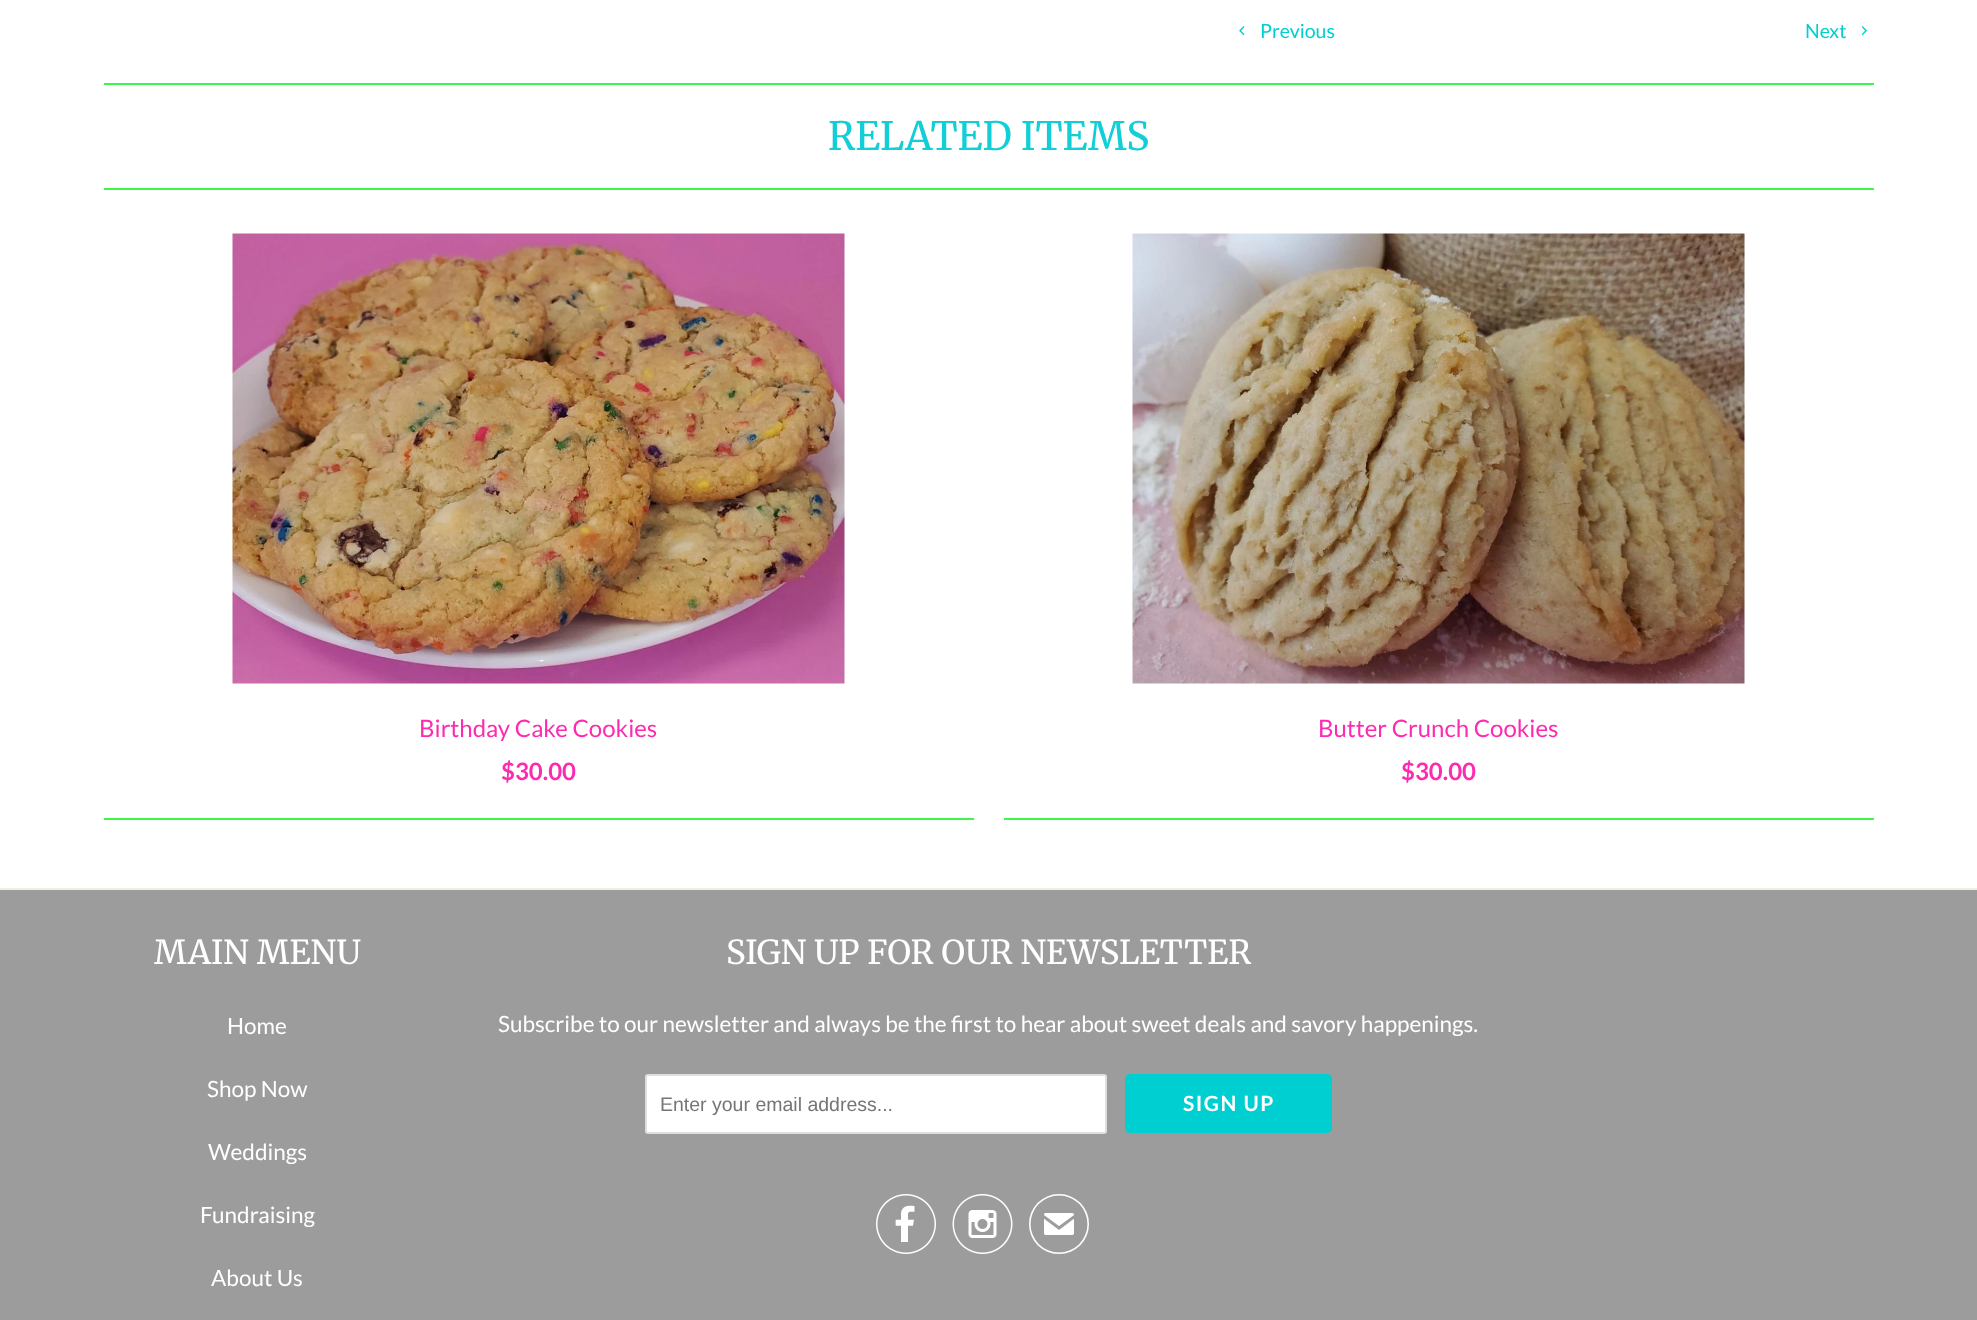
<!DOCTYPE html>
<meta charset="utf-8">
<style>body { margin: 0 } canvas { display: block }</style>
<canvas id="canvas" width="1977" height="1320"></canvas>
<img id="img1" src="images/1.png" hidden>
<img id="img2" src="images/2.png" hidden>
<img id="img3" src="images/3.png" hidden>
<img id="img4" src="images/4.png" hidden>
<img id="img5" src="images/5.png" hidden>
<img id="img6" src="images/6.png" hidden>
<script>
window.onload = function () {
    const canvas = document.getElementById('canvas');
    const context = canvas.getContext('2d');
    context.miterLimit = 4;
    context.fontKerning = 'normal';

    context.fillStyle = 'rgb(255, 255, 255)';
    context.fillRect(0, 0, 1977, 1320);
    context.drawImage(document.getElementById('img1'), 1239, 26, 6, 10);
    context.drawImage(document.getElementById('img2'), 1861, 26, 6, 10);
    context.fillStyle = 'rgb(63, 247, 74)';
    context.fillRect(104, 83, 1770, 2);
    context.fillRect(104, 188, 1770, 2);
    context.fillRect(104, 818, 870, 2);
    context.drawImage(document.getElementById('img3'), 232, 233, 613, 451);
    context.fillRect(1004, 818, 870, 2);
    context.drawImage(document.getElementById('img4'), 1132, 233, 613, 451);
    context.fillStyle = 'rgb(156, 156, 156)';
    context.fillRect(0, 890, 1977, 430);
    context.fillStyle = 'rgb(241, 237, 229)';
    context.fillRect(0, 888, 1977, 2);
    context.fillStyle = 'rgb(255, 255, 255)';
    context.beginPath();
    context.roundRect(646, 1075, 460, 58, 2);
    context.fill();
    context.strokeStyle = 'rgb(223, 223, 223)';
    context.lineWidth = 2;
    context.stroke();
    context.fillStyle = 'rgb(0, 207, 209)';
    context.beginPath();
    context.roundRect(1126, 1075, 205, 57, 4);
    context.fill();
    context.strokeStyle = 'rgb(0, 207, 209)';
    context.stroke();
    context.drawImage(document.getElementById('img5'), 876, 1194, 60, 60);
    context.drawImage(document.getElementById('img6'), 952, 1194, 61, 60);
    context.font = '19.5px Lato';
    context.fillText('Previous', 1260, 38);
    context.fillText('Next', 1805, 38);
    context.font = '39px Merriweather';
    context.fillStyle = 'rgb(17, 206, 215)';
    context.fillText('RELATED ITEMS', 828, 150);
    context.font = '24px Lato';
    context.fillStyle = 'rgb(253, 43, 175)';
    context.fillText('Birthday Cake Cookies', 419, 737);
    context.font = 'bold 24px Lato';
    context.fillText('$30.00', 501, 780);
    context.font = '24px Lato';
    context.fillText('Butter Crunch Cookies', 1318, 737);
    context.font = 'bold 24px Lato';
    context.fillText('$30.00', 1401, 780);
    context.font = '33px Merriweather';
    context.fillStyle = 'rgb(255, 255, 255)';
    context.fillText('MAIN MENU', 154, 964);
    context.font = '22.5px Lato';
    context.fillText('Home', 227, 1034);
    context.fillText('Shop Now', 207, 1097);
    context.fillText('Weddings', 208, 1160);
    context.fillText('Fundraising', 200, 1223);
    context.fillText('About Us', 211, 1286);
    context.font = '33px Merriweather';
    context.fillText('SIGN UP FOR OUR NEWSLETTER', 726, 964);
    context.font = '22.5px Lato';
    context.fillText('Subscribe to our newsletter and always be the first to hear about sweet deals and savory happenings.', 498, 1032);
    context.font = '19.5px Liberation Sans';
    context.fillStyle = 'rgb(117, 117, 117)';
    context.fillText('Enter your email address...', 660, 1111);
    context.letterSpacing = '1.5px';
    context.font = 'bold 21px Lato';
    context.fillStyle = 'rgb(255, 255, 255)';
    context.fillText('SIGN UP', 1183, 1111);
    context.letterSpacing = '0px';
    context.font = '60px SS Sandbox';
    context.fillText('✉', 1029, 1254);
};
</script>
